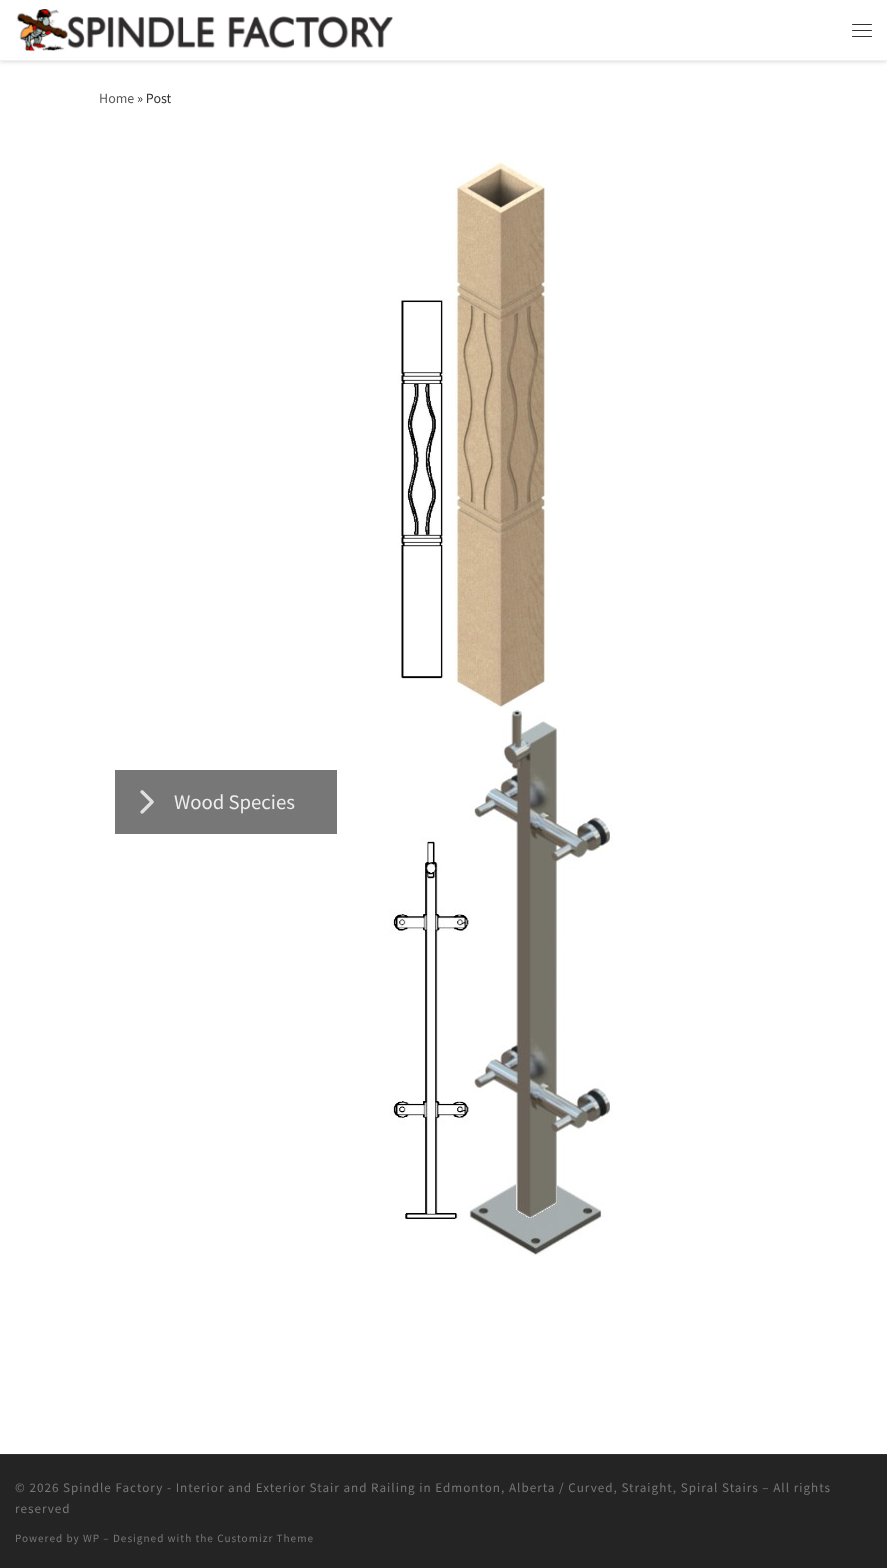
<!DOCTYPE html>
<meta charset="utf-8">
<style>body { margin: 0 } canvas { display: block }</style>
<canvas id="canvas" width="887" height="1568"></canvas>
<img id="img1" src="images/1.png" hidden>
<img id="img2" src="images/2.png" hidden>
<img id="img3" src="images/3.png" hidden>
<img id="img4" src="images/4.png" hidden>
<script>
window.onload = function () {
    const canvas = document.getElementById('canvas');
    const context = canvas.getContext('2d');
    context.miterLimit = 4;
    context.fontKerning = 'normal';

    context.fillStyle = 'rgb(255, 255, 255)';
    context.fillRect(0, 0, 887, 1568);
    context.fillStyle = 'rgba(0, 0, 0, 0.2)';
    context.filter = 'blur(2.5px)';
    context.beginPath();
    context.rect(0, 0, 887, 61);
    context.fill();
    context.filter = 'none';
    context.fillStyle = 'rgb(255, 255, 255)';
    context.fillRect(0, 0, 887, 60);
    context.drawImage(document.getElementById('img1'), 16, 9, 377, 42);
    context.fillStyle = 'rgb(49, 49, 49)';
    context.beginPath();
    context.roundRect(852, 24, 20, 1, 0.5);
    context.fill();
    context.beginPath();
    context.roundRect(852, 30, 20, 1, 0.5);
    context.fill();
    context.beginPath();
    context.roundRect(852, 36, 20, 1, 0.5);
    context.fill();
    context.fillStyle = 'rgb(240, 240, 240)';
    context.fillRect(0, 60, 887, 1);
    context.fillStyle = 'rgb(119, 119, 119)';
    context.fillRect(115, 770, 222, 64);
    context.drawImage(document.getElementById('img2'), 140, 790, 14, 24);
    context.drawImage(document.getElementById('img3'), 398, 161, 153, 548);
    context.drawImage(document.getElementById('img4'), 389, 709, 224, 547);
    context.fillStyle = 'rgb(49, 49, 49)';
    context.fillRect(0, 1454, 887, 1);
    context.fillStyle = 'rgb(36, 36, 36)';
    context.fillRect(0, 1455, 887, 113);
    context.font = '14px Source Sans Pro';
    context.fillStyle = 'rgb(90, 90, 90)';
    context.fillText('Home', 99, 103);
    context.fillStyle = 'rgb(51, 51, 51)';
    context.fillText('» Post', 137, 103);
    context.font = '20.75px Source Sans Pro';
    context.fillStyle = 'rgb(237, 237, 237)';
    context.fillText('Wood Species', 174, 809);
    context.letterSpacing = '1px';
    context.font = '13.12px Source Sans Pro';
    context.fillStyle = 'rgb(119, 119, 119)';
    context.fillText('© 2026 Spindle Factory - Interior and Exterior Stair and Railing in Edmonton, Alberta / Curved, Straight, Spiral Stairs – All rights', 15, 1492);
    context.fillText('reserved', 15, 1513);
    context.font = '11.2px Source Sans Pro';
    context.fillText('Powered by WP – Designed with the Customizr Theme', 15, 1542);
};
</script>
